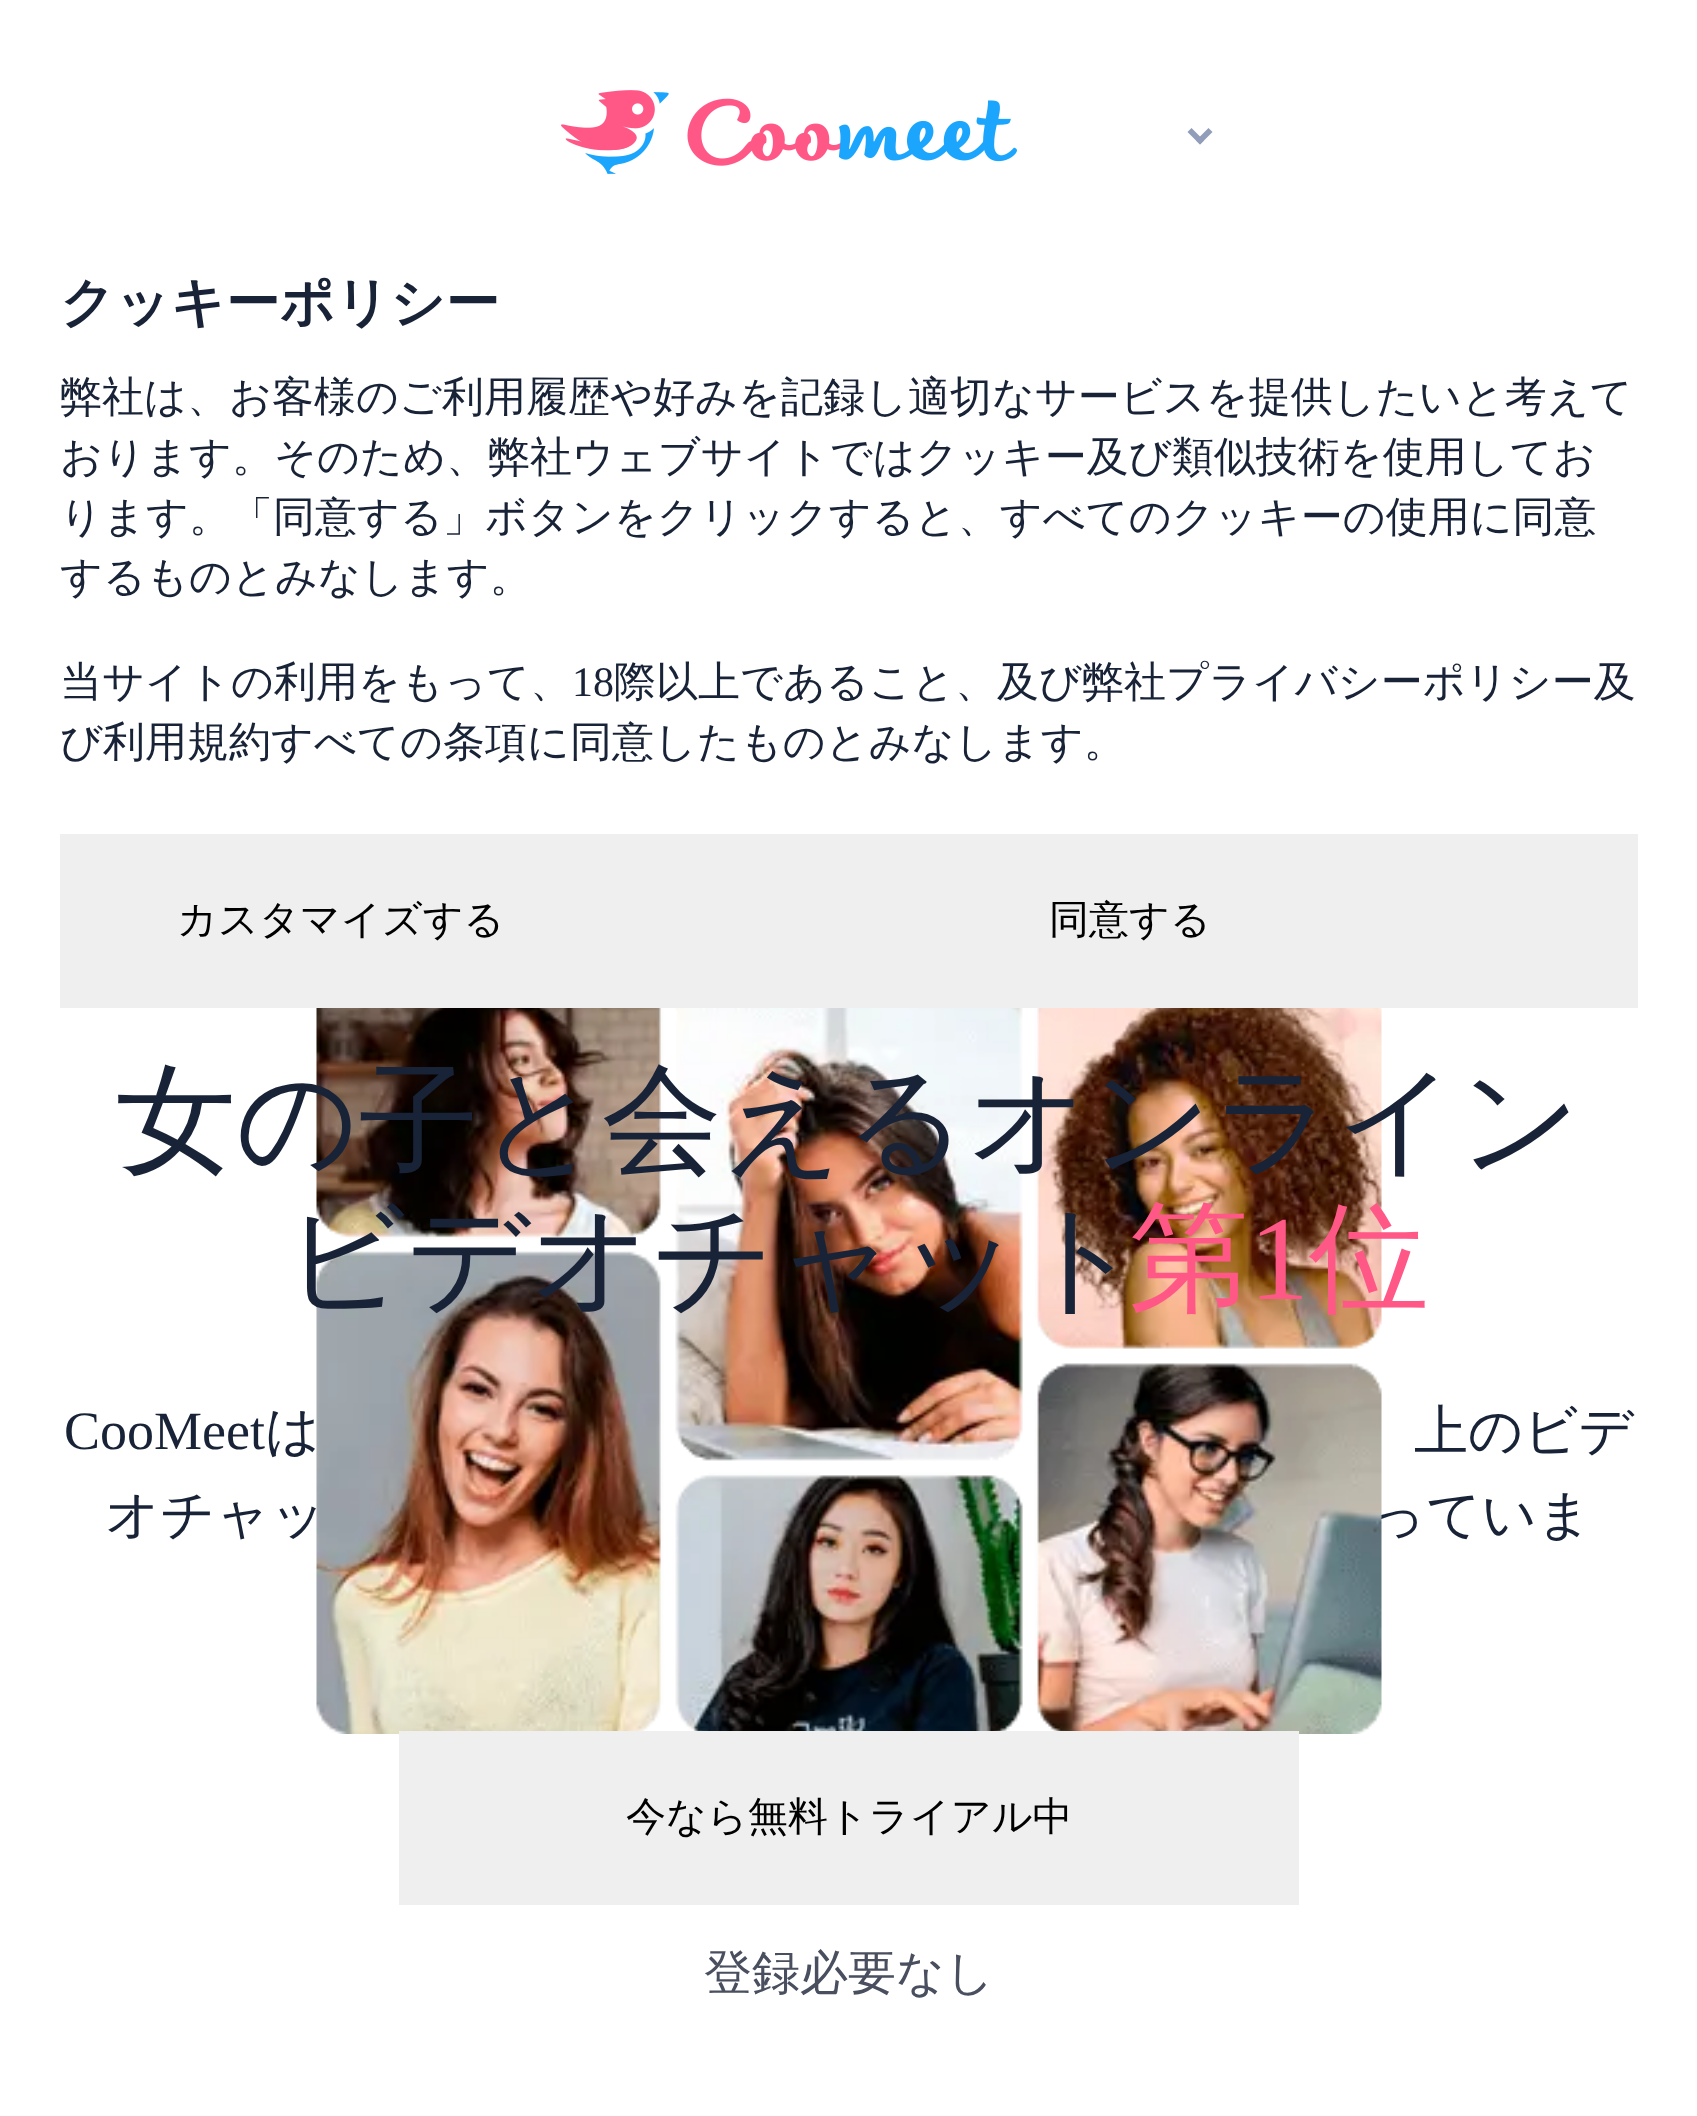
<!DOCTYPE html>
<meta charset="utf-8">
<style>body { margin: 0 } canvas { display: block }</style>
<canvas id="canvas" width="1697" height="2116"></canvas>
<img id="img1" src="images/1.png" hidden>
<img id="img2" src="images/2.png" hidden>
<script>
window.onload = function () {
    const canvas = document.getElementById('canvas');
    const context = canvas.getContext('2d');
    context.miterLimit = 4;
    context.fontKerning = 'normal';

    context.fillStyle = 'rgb(255, 255, 255)';
    context.fillRect(0, 0, 1697, 2116);
    context.drawImage(document.getElementById('img1'), 561, 90, 456, 84);
    context.fillStyle = 'rgb(146, 157, 185)';
    context.beginPath();
    context.moveTo(1208.5, 128);
    context.lineTo(1212.5, 132);
    context.lineTo(1200, 144.5);
    context.lineTo(1196, 140.5);
    context.closePath();
    context.fill();
    context.beginPath();
    context.moveTo(1191.5, 128);
    context.lineTo(1204, 140.5);
    context.lineTo(1200, 144.5);
    context.lineTo(1187.5, 132);
    context.closePath();
    context.fill();
    context.fillStyle = 'rgb(239, 239, 239)';
    context.fillRect(60, 834, 1578, 174);
    context.font = 'bold 54px WenQuanYi Zen Hei';
    context.fillStyle = 'rgb(24, 35, 55)';
    context.fillText('クッキーポリシー', 60, 321);
    context.font = '500 42px WenQuanYi Zen Hei';
    context.fillText('弊社は、お客様のご利用履歴や好みを記録し適切なサービスを提供したいと考えて', 60, 411);
    context.fillText('おります。そのため、弊社ウェブサイトではクッキー及び類似技術を使用してお', 60, 471);
    context.fillText('ります。「同意する」ボタンをクリックすると、すべてのクッキーの使用に同意', 60, 531);
    context.fillText('するものとみなします。', 60, 591);
    context.fillText('当サイトの利用をもって、', 60, 696);
    context.font = '42px Liberation Serif';
    context.fillText('18', 572, 696);
    context.font = '500 42px WenQuanYi Zen Hei';
    context.fillText('際以上であること、及び弊社プライバシーポリシー及', 614, 696);
    context.fillText('び利用規約すべての条項に同意したものとみなします。', 60, 756);
    context.font = '500 40px WenQuanYi Zen Hei';
    context.fillStyle = 'rgb(0, 0, 0)';
    context.fillText('カスタマイズする', 177, 933);
    context.fillText('同意する', 1049, 933);
    context.font = '54px Liberation Serif';
    context.fillStyle = 'rgb(24, 35, 55)';
    context.fillText('CooMeet', 64, 1449);
    context.font = '500 54px WenQuanYi Zen Hei';
    context.fillText('は', 265, 1449);
    context.fillText('上のビデ', 1414, 1449);
    context.fillText('オチャッ', 105, 1533);
    context.fillText('っていま', 1371, 1533);
    context.drawImage(document.getElementById('img2'), 316, 1008, 1066, 726);
    context.font = '500 120px WenQuanYi Zen Hei';
    context.fillText('ビデオチャット', 284, 1299);
    context.fillText('女の子と会えるオンライン', 116, 1161);
    context.fillStyle = 'rgb(255, 88, 135)';
    context.fillText('位', 1309, 1299);
    context.font = '120px Liberation Serif';
    context.fillText('1', 1249, 1299);
    context.font = '500 120px WenQuanYi Zen Hei';
    context.fillText('第', 1129, 1299);
    context.fillStyle = 'rgb(239, 239, 239)';
    context.fillRect(399, 1731, 900, 174);
    context.font = '500 40px WenQuanYi Zen Hei';
    context.fillStyle = 'rgb(0, 0, 0)';
    context.fillText('今なら無料トライアル中', 626, 1830);
    context.font = '500 48px WenQuanYi Zen Hei';
    context.fillStyle = 'rgb(73, 79, 94)';
    context.fillText('登録必要なし', 704, 1989);
};
</script>
